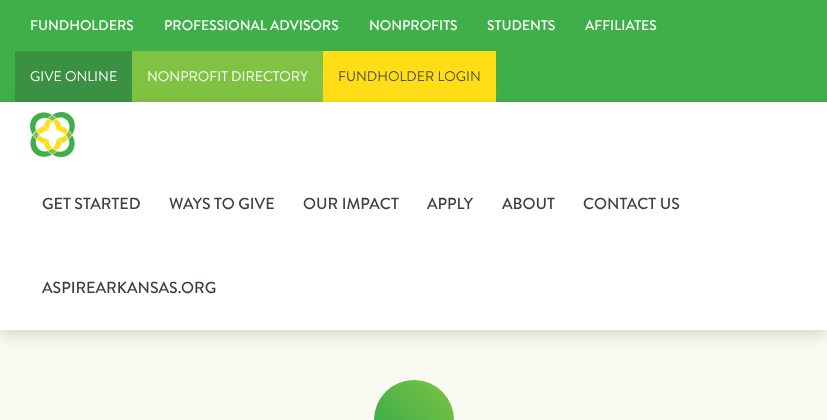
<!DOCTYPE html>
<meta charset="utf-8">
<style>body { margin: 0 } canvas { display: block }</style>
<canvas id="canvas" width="827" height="420"></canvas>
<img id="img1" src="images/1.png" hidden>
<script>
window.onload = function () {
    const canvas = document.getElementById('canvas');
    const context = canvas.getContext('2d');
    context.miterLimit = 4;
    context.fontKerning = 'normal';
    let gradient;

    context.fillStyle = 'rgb(255, 255, 255)';
    context.fillRect(0, 0, 827, 420);
    context.fillStyle = 'rgb(63, 175, 73)';
    context.fillRect(0, 0, 827, 102);
    context.fillStyle = 'rgb(58, 145, 66)';
    context.fillRect(15, 51, 117, 51);
    context.save();
    context.beginPath();
    context.rect(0, 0, 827, 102);
    context.clip();
    context.fillStyle = 'rgba(128, 195, 66, 0.3)';
    context.filter = 'blur(10px)';
    context.beginPath();
    context.rect(142, 76, 171, 31);
    context.fill();
    context.filter = 'none';
    context.restore();
    context.fillStyle = 'rgb(128, 195, 66)';
    context.fillRect(132, 51, 191, 51);
    context.save();
    context.beginPath();
    context.rect(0, 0, 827, 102);
    context.clip();
    context.fillStyle = 'rgba(255, 222, 23, 0.3)';
    context.filter = 'blur(10px)';
    context.beginPath();
    context.rect(333, 76, 153, 31);
    context.fill();
    context.filter = 'none';
    context.restore();
    context.fillStyle = 'rgb(255, 222, 23)';
    context.fillRect(323, 51, 173, 51);
    context.fillStyle = 'rgb(249, 250, 241)';
    context.fillRect(0, 330, 827, 90);
    context.save();
    context.beginPath();
    context.moveTo(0, 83);
    context.lineTo(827, 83);
    context.lineTo(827, 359);
    context.lineTo(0, 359);
    context.closePath();
    context.moveTo(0, 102);
    context.lineTo(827, 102);
    context.lineTo(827, 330);
    context.lineTo(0, 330);
    context.closePath();
    context.clip('evenodd');
    context.fillStyle = 'rgba(84, 80, 66, 0.2)';
    context.filter = 'blur(7.5px)';
    context.beginPath();
    context.rect(0, 107, 827, 228);
    context.fill();
    context.filter = 'none';
    context.restore();
    context.drawImage(document.getElementById('img1'), 30, 112, 45, 45);
    gradient = context.createLinearGradient(314, 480, 434, 360);
    gradient.addColorStop(0, 'rgb(128, 195, 66)');
    gradient.addColorStop(0.5, 'rgb(63, 175, 73)');
    gradient.addColorStop(1, 'rgb(128, 195, 66)');
    context.fillStyle = gradient;
    context.beginPath();
    context.arc(414, 420, 40, 0, 2 * Math.PI);
    context.fill();
    context.font = '500 14px Brandon Grotesque';
    context.fillStyle = 'rgb(255, 255, 255)';
    context.fillText('FUNDHOLDERS', 30, 30);
    context.fillText('PROFESSIONAL ADVISORS', 164, 30);
    context.fillText('NONPROFITS', 369, 30);
    context.fillText('STUDENTS', 487, 30);
    context.fillText('AFFILIATES', 585, 30);
    context.font = '14px Brandon Grotesque';
    context.fillText('GIVE ONLINE', 30, 81);
    context.fillText('NONPROFIT DIRECTORY', 147, 81);
    context.fillStyle = 'rgb(84, 80, 66)';
    context.fillText('FUNDHOLDER LOGIN', 338, 81);
    context.font = '500 16px Brandon Grotesque';
    context.fillStyle = 'rgb(60, 65, 62)';
    context.fillText('GET STARTED', 42, 209);
    context.fillText('WAYS TO GIVE', 169, 209);
    context.fillText('OUR IMPACT', 303, 209);
    context.fillText('APPLY', 427, 209);
    context.fillText('ABOUT', 502, 209);
    context.fillText('CONTACT US', 583, 209);
    context.fillText('ASPIREARKANSAS.ORG', 42, 293);
};
</script>
